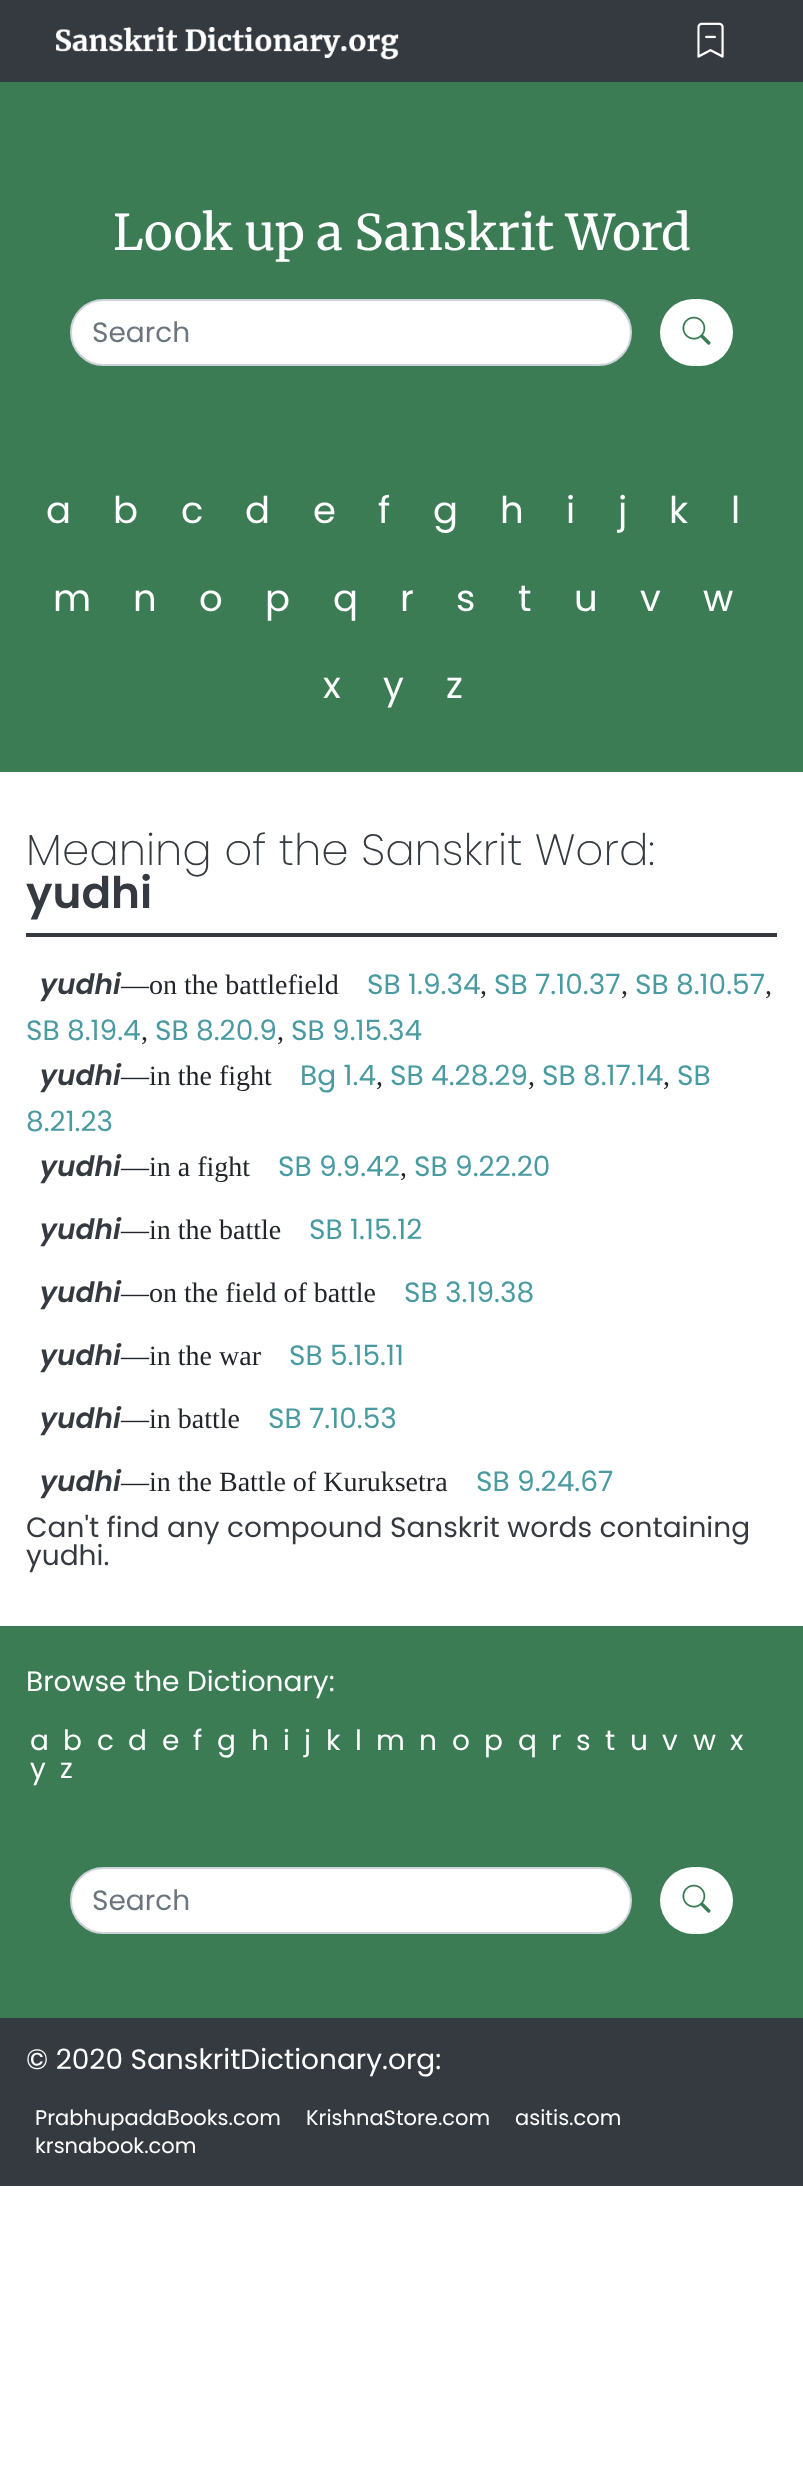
<!DOCTYPE html>
<meta charset="utf-8">
<style>body { margin: 0 } canvas { display: block }</style>
<canvas id="canvas" width="803" height="2480"></canvas>
<img id="img1" src="images/1.png" hidden>
<img id="img2" src="images/2.png" hidden>
<img id="img3" src="images/3.png" hidden>
<script>
window.onload = function () {
    const canvas = document.getElementById('canvas');
    const context = canvas.getContext('2d');
    context.miterLimit = 4;
    context.fontKerning = 'normal';

    context.fillStyle = 'rgb(255, 255, 255)';
    context.fillRect(0, 0, 803, 2480);
    context.fillStyle = 'rgb(52, 58, 64)';
    context.fillRect(0, 0, 803, 82);
    context.drawImage(document.getElementById('img1'), 56, 27, 343, 33);
    context.drawImage(document.getElementById('img2'), 697, 22, 27, 36);
    context.fillStyle = 'rgb(59, 124, 85)';
    context.fillRect(0, 82, 803, 690);
    context.fillStyle = 'rgb(255, 255, 255)';
    context.beginPath();
    context.roundRect(71, 300, 560, 65, 32.5);
    context.fill();
    context.strokeStyle = 'rgb(206, 212, 218)';
    context.lineWidth = 2;
    context.stroke();
    context.beginPath();
    context.roundRect(660, 299, 73, 67, 33.5);
    context.fill();
    context.drawImage(document.getElementById('img3'), 682, 316, 29, 29);
    context.fillStyle = 'rgb(52, 58, 64)';
    context.fillRect(26, 933, 751, 4);
    context.fillStyle = 'rgb(59, 124, 85)';
    context.fillRect(0, 1626, 803, 392);
    context.fillStyle = 'rgb(255, 255, 255)';
    context.beginPath();
    context.roundRect(71, 1868, 560, 65, 32.5);
    context.fill();
    context.stroke();
    context.beginPath();
    context.roundRect(660, 1867, 73, 67, 33.5);
    context.fill();
    context.drawImage(document.getElementById('img3'), 682, 1884, 29, 29);
    context.fillStyle = 'rgb(52, 58, 64)';
    context.fillRect(0, 2018, 803, 168);
    context.font = '49px Merriweather';
    context.fillStyle = 'rgb(255, 255, 255)';
    context.fillText('Look up a Sanskrit Word', 113, 250);
    context.font = '28px Poppins';
    context.fillStyle = 'rgb(108, 117, 125)';
    context.fillText('Search', 92, 342);
    context.letterSpacing = '18px';
    context.font = '37px Poppins';
    context.fillStyle = 'rgb(255, 255, 255)';
    context.fillText('a', 46, 523);
    context.fillText('b', 113, 523);
    context.fillText('c', 181, 523);
    context.fillText('d', 245, 523);
    context.fillText('e', 313, 523);
    context.fillText('f', 378, 523);
    context.fillText('g', 433, 523);
    context.fillText('h', 500, 523);
    context.fillText('i', 566, 523);
    context.fillText('j', 618, 523);
    context.fillText('k', 669, 523);
    context.fillText('l', 731, 523);
    context.fillText('m', 53, 611);
    context.fillText('n', 133, 611);
    context.fillText('o', 199, 611);
    context.fillText('p', 265, 611);
    context.fillText('q', 333, 611);
    context.fillText('r', 400, 611);
    context.fillText('s', 456, 611);
    context.fillText('t', 518, 611);
    context.fillText('u', 574, 611);
    context.fillText('v', 640, 611);
    context.fillText('w', 703, 611);
    context.fillText('x', 323, 698);
    context.fillText('y', 383, 698);
    context.fillText('z', 446, 698);
    context.letterSpacing = '0px';
    context.font = '200 43.75px Poppins';
    context.fillStyle = 'rgb(52, 58, 64)';
    context.fillText('Meaning of the Sanskrit Word:', 26, 865);
    context.font = '600 43.75px Poppins';
    context.fillText('yudhi', 26, 908);
    context.font = 'italic 600 28px Poppins';
    context.fillText('yudhi', 40, 994);
    context.font = '28px Liberation Serif';
    context.fillStyle = 'rgb(33, 37, 41)';
    context.fillText('—on the battlefield', 121, 994);
    context.font = '28px Poppins';
    context.fillStyle = 'rgb(74, 154, 161)';
    context.fillText('SB 1.9.34', 367, 994);
    context.font = '28px Liberation Serif';
    context.fillStyle = 'rgb(33, 37, 41)';
    context.fillText(',', 480, 994);
    context.font = '28px Poppins';
    context.fillStyle = 'rgb(74, 154, 161)';
    context.fillText('SB 7.10.37', 494, 994);
    context.font = '28px Liberation Serif';
    context.fillStyle = 'rgb(33, 37, 41)';
    context.fillText(',', 621, 994);
    context.font = '28px Poppins';
    context.fillStyle = 'rgb(74, 154, 161)';
    context.fillText('SB 8.10.57', 635, 994);
    context.font = '28px Liberation Serif';
    context.fillStyle = 'rgb(33, 37, 41)';
    context.fillText(',', 765, 994);
    context.font = '28px Poppins';
    context.fillStyle = 'rgb(74, 154, 161)';
    context.fillText('SB 8.19.4', 26, 1040);
    context.font = '28px Liberation Serif';
    context.fillStyle = 'rgb(33, 37, 41)';
    context.fillText(',', 141, 1040);
    context.font = '28px Poppins';
    context.fillStyle = 'rgb(74, 154, 161)';
    context.fillText('SB 8.20.9', 155, 1040);
    context.font = '28px Liberation Serif';
    context.fillStyle = 'rgb(33, 37, 41)';
    context.fillText(',', 277, 1040);
    context.font = '28px Poppins';
    context.fillStyle = 'rgb(74, 154, 161)';
    context.fillText('SB 9.15.34', 291, 1040);
    context.font = 'italic 600 28px Poppins';
    context.fillStyle = 'rgb(52, 58, 64)';
    context.fillText('yudhi', 40, 1085);
    context.font = '28px Liberation Serif';
    context.fillStyle = 'rgb(33, 37, 41)';
    context.fillText('—in the fight', 121, 1085);
    context.font = '28px Poppins';
    context.fillStyle = 'rgb(74, 154, 161)';
    context.fillText('Bg 1.4', 300, 1085);
    context.font = '28px Liberation Serif';
    context.fillStyle = 'rgb(33, 37, 41)';
    context.fillText(',', 376, 1085);
    context.font = '28px Poppins';
    context.fillStyle = 'rgb(74, 154, 161)';
    context.fillText('SB 4.28.29', 390, 1085);
    context.font = '28px Liberation Serif';
    context.fillStyle = 'rgb(33, 37, 41)';
    context.fillText(',', 528, 1085);
    context.font = '28px Poppins';
    context.fillStyle = 'rgb(74, 154, 161)';
    context.fillText('SB 8.17.14', 542, 1085);
    context.font = '28px Liberation Serif';
    context.fillStyle = 'rgb(33, 37, 41)';
    context.fillText(',', 663, 1085);
    context.font = '28px Poppins';
    context.fillStyle = 'rgb(74, 154, 161)';
    context.fillText('SB', 677, 1085);
    context.fillText('8.21.23', 26, 1131);
    context.font = 'italic 600 28px Poppins';
    context.fillStyle = 'rgb(52, 58, 64)';
    context.fillText('yudhi', 40, 1176);
    context.font = '28px Liberation Serif';
    context.fillStyle = 'rgb(33, 37, 41)';
    context.fillText('—in a fight', 121, 1176);
    context.font = '28px Poppins';
    context.fillStyle = 'rgb(74, 154, 161)';
    context.fillText('SB 9.9.42', 278, 1176);
    context.font = '28px Liberation Serif';
    context.fillStyle = 'rgb(33, 37, 41)';
    context.fillText(',', 400, 1176);
    context.font = '28px Poppins';
    context.fillStyle = 'rgb(74, 154, 161)';
    context.fillText('SB 9.22.20', 414, 1176);
    context.font = 'italic 600 28px Poppins';
    context.fillStyle = 'rgb(52, 58, 64)';
    context.fillText('yudhi', 40, 1239);
    context.font = '28px Liberation Serif';
    context.fillStyle = 'rgb(33, 37, 41)';
    context.fillText('—in the battle', 121, 1239);
    context.font = '28px Poppins';
    context.fillStyle = 'rgb(74, 154, 161)';
    context.fillText('SB 1.15.12', 309, 1239);
    context.font = 'italic 600 28px Poppins';
    context.fillStyle = 'rgb(52, 58, 64)';
    context.fillText('yudhi', 40, 1302);
    context.font = '28px Liberation Serif';
    context.fillStyle = 'rgb(33, 37, 41)';
    context.fillText('—on the field of battle', 121, 1302);
    context.font = '28px Poppins';
    context.fillStyle = 'rgb(74, 154, 161)';
    context.fillText('SB 3.19.38', 404, 1302);
    context.font = 'italic 600 28px Poppins';
    context.fillStyle = 'rgb(52, 58, 64)';
    context.fillText('yudhi', 40, 1365);
    context.font = '28px Liberation Serif';
    context.fillStyle = 'rgb(33, 37, 41)';
    context.fillText('—in the war', 121, 1365);
    context.font = '28px Poppins';
    context.fillStyle = 'rgb(74, 154, 161)';
    context.fillText('SB 5.15.11', 289, 1365);
    context.font = 'italic 600 28px Poppins';
    context.fillStyle = 'rgb(52, 58, 64)';
    context.fillText('yudhi', 40, 1428);
    context.font = '28px Liberation Serif';
    context.fillStyle = 'rgb(33, 37, 41)';
    context.fillText('—in battle', 121, 1428);
    context.font = '28px Poppins';
    context.fillStyle = 'rgb(74, 154, 161)';
    context.fillText('SB 7.10.53', 268, 1428);
    context.font = 'italic 600 28px Poppins';
    context.fillStyle = 'rgb(52, 58, 64)';
    context.fillText('yudhi', 40, 1491);
    context.font = '28px Liberation Serif';
    context.fillStyle = 'rgb(33, 37, 41)';
    context.fillText('—in the Battle of Kuruksetra', 121, 1491);
    context.font = '28px Poppins';
    context.fillStyle = 'rgb(74, 154, 161)';
    context.fillText('SB 9.24.67', 476, 1491);
    context.fillStyle = 'rgb(52, 58, 64)';
    context.fillText('Can\'t find any compound Sanskrit words containing', 26, 1537);
    context.fillText('yudhi.', 26, 1565);
    context.fillStyle = 'rgb(255, 255, 255)';
    context.fillText('Browse the Dictionary:', 26, 1691);
    context.fillText('a', 30, 1750);
    context.fillText('b', 63, 1750);
    context.fillText('c', 97, 1750);
    context.fillText('d', 128, 1750);
    context.fillText('e', 162, 1750);
    context.fillText('f', 193, 1750);
    context.fillText('g', 217, 1750);
    context.fillText('h', 251, 1750);
    context.fillText('i', 283, 1750);
    context.fillText('j', 304, 1750);
    context.fillText('k', 326, 1750);
    context.fillText('l', 355, 1750);
    context.fillText('m', 376, 1750);
    context.fillText('n', 419, 1750);
    context.fillText('o', 452, 1750);
    context.fillText('p', 484, 1750);
    context.fillText('q', 518, 1750);
    context.fillText('r', 551, 1750);
    context.fillText('s', 576, 1750);
    context.fillText('t', 605, 1750);
    context.fillText('u', 630, 1750);
    context.fillText('v', 662, 1750);
    context.fillText('w', 693, 1750);
    context.fillText('x', 730, 1750);
    context.fillText('y', 30, 1778);
    context.fillText('z', 60, 1778);
    context.fillStyle = 'rgb(108, 117, 125)';
    context.fillText('Search', 92, 1910);
    context.fillStyle = 'rgb(255, 255, 255)';
    context.fillText('© 2020 SanskritDictionary.org:', 26, 2069);
    context.font = '21px Poppins';
    context.fillText('PrabhupadaBooks.com', 35, 2125);
    context.fillText('KrishnaStore.com', 306, 2125);
    context.fillText('asitis.com', 515, 2125);
    context.fillText('krsnabook.com', 35, 2153);
};
</script>
